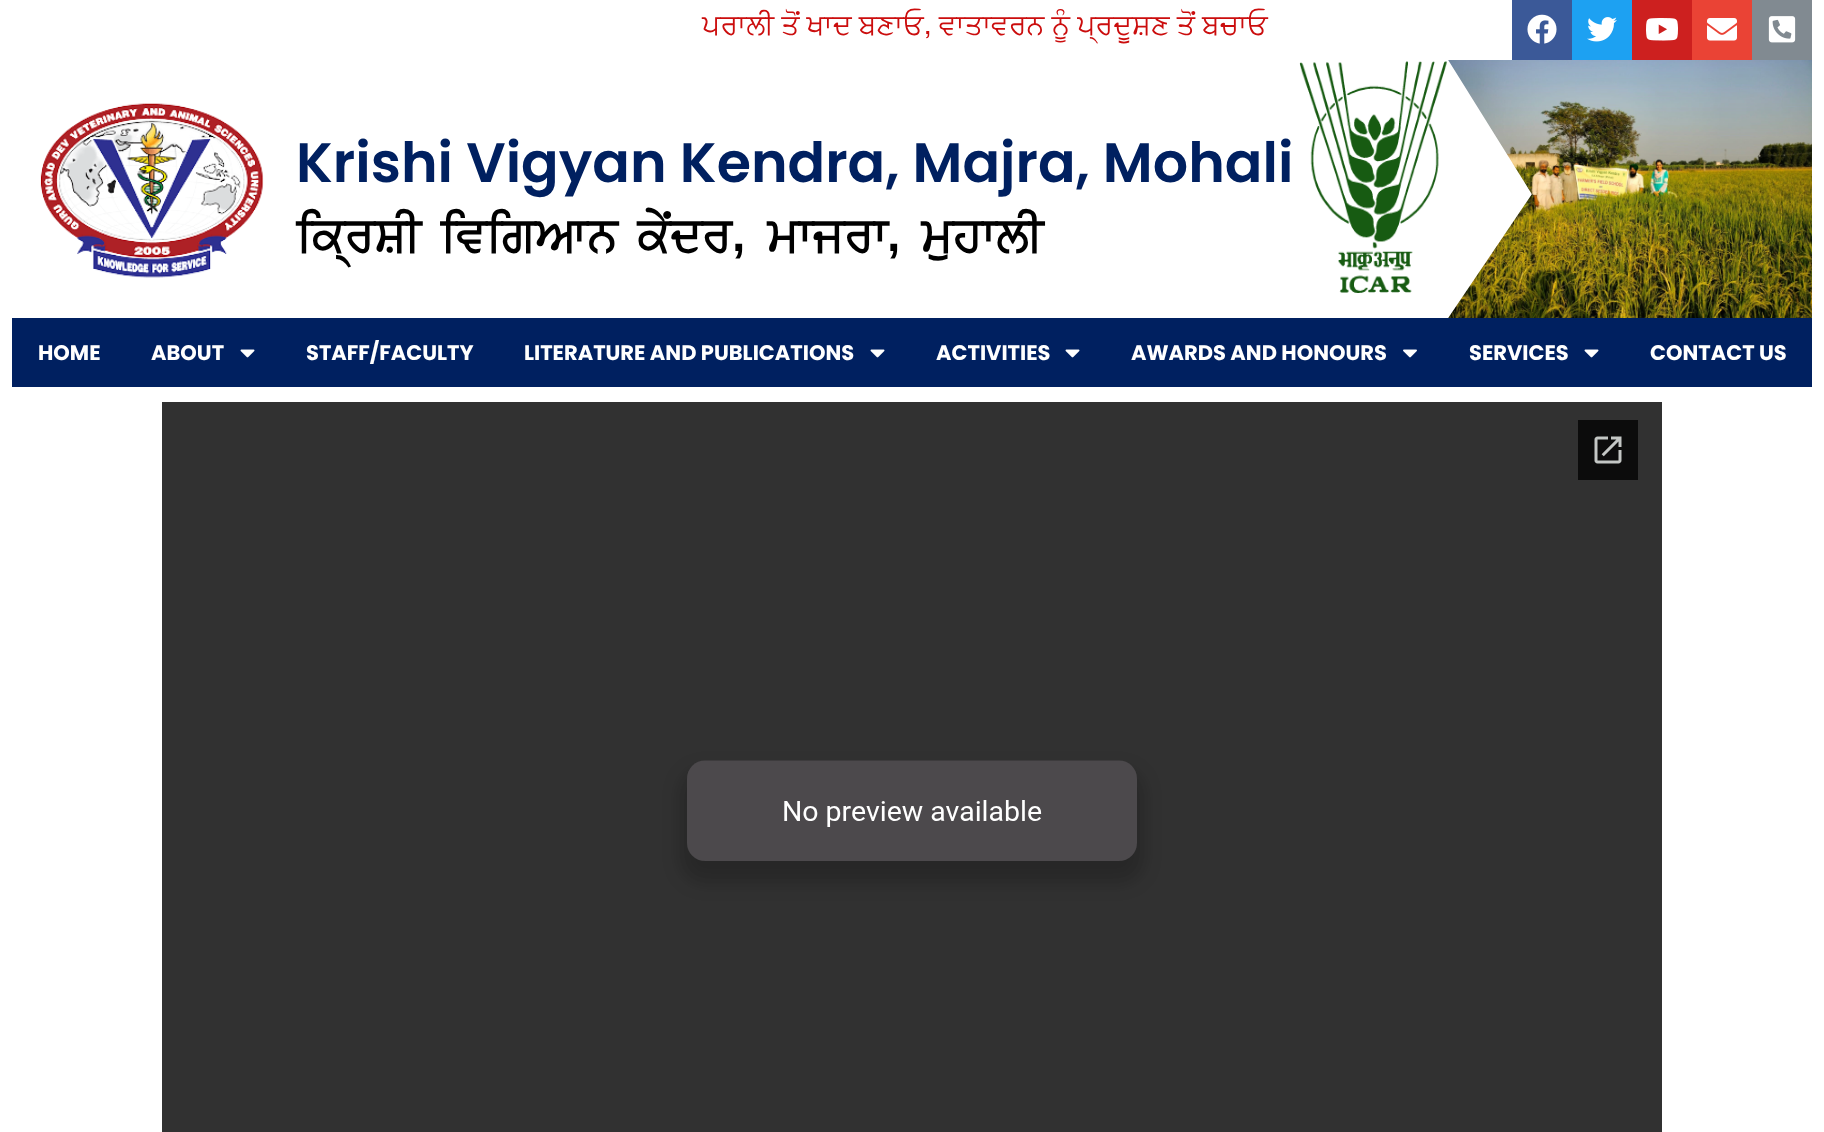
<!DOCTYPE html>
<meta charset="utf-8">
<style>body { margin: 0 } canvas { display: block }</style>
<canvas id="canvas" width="1824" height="1132"></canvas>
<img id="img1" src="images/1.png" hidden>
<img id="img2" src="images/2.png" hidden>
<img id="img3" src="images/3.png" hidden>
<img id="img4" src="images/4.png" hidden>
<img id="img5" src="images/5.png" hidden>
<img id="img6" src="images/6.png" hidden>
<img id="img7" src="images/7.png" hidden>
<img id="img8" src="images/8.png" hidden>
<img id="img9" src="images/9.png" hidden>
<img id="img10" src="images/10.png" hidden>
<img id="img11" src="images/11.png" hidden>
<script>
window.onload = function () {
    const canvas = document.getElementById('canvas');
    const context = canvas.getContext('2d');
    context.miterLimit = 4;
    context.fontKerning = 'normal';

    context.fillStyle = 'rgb(255, 255, 255)';
    context.fillRect(0, 0, 1824, 1132);
    context.fillStyle = 'rgb(59, 89, 152)';
    context.fillRect(1512, 0, 60, 60);
    context.drawImage(document.getElementById('img1'), 1527, 14, 30, 30);
    context.fillStyle = 'rgb(29, 161, 242)';
    context.fillRect(1572, 0, 60, 60);
    context.drawImage(document.getElementById('img2'), 1587, 17, 30, 25);
    context.fillStyle = 'rgb(205, 32, 31)';
    context.fillRect(1632, 0, 60, 60);
    context.drawImage(document.getElementById('img3'), 1646, 18, 32, 23);
    context.fillStyle = 'rgb(234, 67, 53)';
    context.fillRect(1692, 0, 60, 60);
    context.drawImage(document.getElementById('img4'), 1707, 18, 30, 23);
    context.fillStyle = 'rgb(129, 138, 145)';
    context.fillRect(1752, 0, 60, 60);
    context.drawImage(document.getElementById('img5'), 1768, 16, 28, 27);
    context.drawImage(document.getElementById('img6'), 40, 103, 224, 175);
    context.drawImage(document.getElementById('img7'), 1299, 61, 148, 232);
    context.drawImage(document.getElementById('img8'), 1448, 60, 364, 258);
    context.fillStyle = 'rgb(0, 32, 96)';
    context.fillRect(12, 318, 1800, 69);
    context.drawImage(document.getElementById('img9'), 240, 349, 15, 9);
    context.drawImage(document.getElementById('img9'), 870, 349, 15, 9);
    context.drawImage(document.getElementById('img9'), 1065, 349, 15, 9);
    context.drawImage(document.getElementById('img10'), 1403, 349, 14, 9);
    context.drawImage(document.getElementById('img9'), 1584, 349, 15, 9);
    context.drawImage(document.getElementById('img11'), 162, 402, 1500, 730);
    context.font = '28.5px FreeSans';
    context.fillStyle = 'rgb(203, 13, 13)';
    context.fillText('ਪਰਾਲੀ ਤੋਂ ਖਾਦ ਬਣਾਓ, ਵਾਤਾਵਰਨ ਨੂੰ ਪ੍ਰਦੂਸ਼ਣ ਤੋਂ ਬਚਾਓ', 702, 34);
    context.font = '600 55.5px Poppins';
    context.fillStyle = 'rgb(0, 32, 96)';
    context.fillText('Krishi Vigyan Kendra, Majra, Mohali', 296, 182);
    context.wordSpacing = '8px';
    context.font = 'bold 48px FreeSans';
    context.fillStyle = 'rgb(0, 0, 0)';
    context.fillText('ਕ੍ਰਿਸ਼ੀ ਵਿਗਿਆਨ ਕੇਂਦਰ', 296, 251);
    context.wordSpacing = '0px';
    context.font = 'bold 48px Liberation Sans';
    context.fillText(',', 732, 251);
    context.font = 'bold 48px FreeSans';
    context.fillText('ਮਾਜਰਾ', 767, 251);
    context.font = 'bold 48px Liberation Sans';
    context.fillText(',', 887, 251);
    context.font = 'bold 48px FreeSans';
    context.fillText('ਮੁਹਾਲੀ', 921, 251);
    context.font = 'bold 21px Poppins';
    context.fillStyle = 'rgb(255, 255, 255)';
    context.fillText('HOME', 38, 360);
    context.fillText('ABOUT', 151, 360);
    context.fillText('STAFF/FACULTY', 306, 360);
    context.fillText('LITERATURE AND PUBLICATIONS', 524, 360);
    context.fillText('ACTIVITIES', 936, 360);
    context.fillText('AWARDS AND HONOURS', 1131, 360);
    context.fillText('SERVICES', 1469, 360);
    context.fillText('CONTACT US', 1650, 360);
};
</script>
